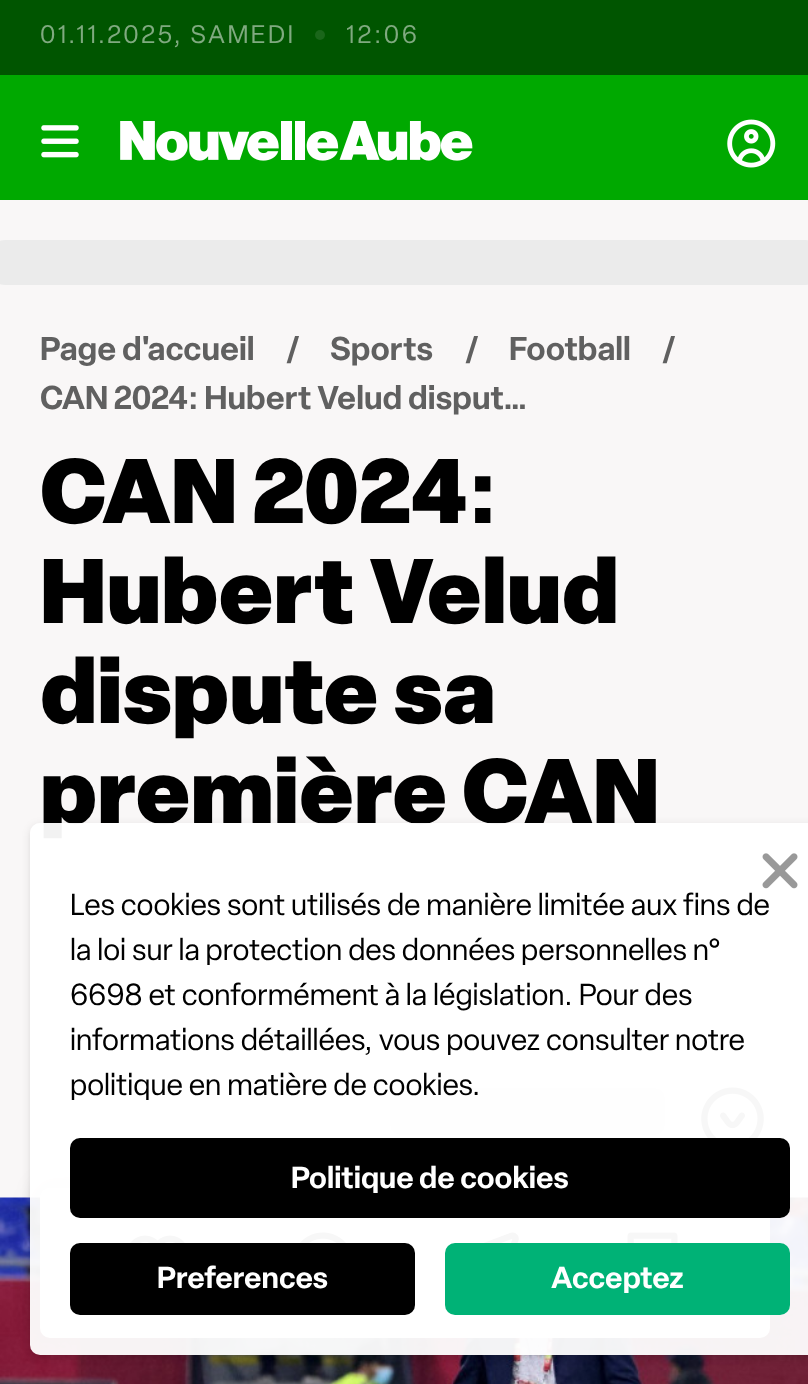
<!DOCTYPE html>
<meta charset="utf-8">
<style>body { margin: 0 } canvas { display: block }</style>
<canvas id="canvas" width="808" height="1384"></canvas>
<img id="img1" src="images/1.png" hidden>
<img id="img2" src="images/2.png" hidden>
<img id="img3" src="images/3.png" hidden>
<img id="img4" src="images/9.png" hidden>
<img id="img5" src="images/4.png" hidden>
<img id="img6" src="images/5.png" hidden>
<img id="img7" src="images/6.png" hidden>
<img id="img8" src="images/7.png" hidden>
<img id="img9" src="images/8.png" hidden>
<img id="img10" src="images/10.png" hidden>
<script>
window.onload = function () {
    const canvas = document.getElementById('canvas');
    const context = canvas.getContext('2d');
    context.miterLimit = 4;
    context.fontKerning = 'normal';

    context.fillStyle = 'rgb(249, 247, 247)';
    context.fillRect(0, 0, 808, 1384);
    context.fillStyle = 'rgb(0, 85, 0)';
    context.fillRect(0, 0, 808, 75);
    context.fillStyle = 'rgb(26, 102, 26)';
    context.beginPath();
    context.arc(320, 35, 5, 0, 2 * Math.PI);
    context.fill();
    context.fillStyle = 'rgb(0, 169, 0)';
    context.fillRect(0, 75, 808, 125);
    context.drawImage(document.getElementById('img1'), 41, 125, 38, 33);
    context.drawImage(document.getElementById('img2'), 120, 121, 353, 40);
    context.drawImage(document.getElementById('img3'), 727, 119, 49, 49);
    context.fillStyle = 'rgb(235, 235, 235)';
    context.beginPath();
    context.roundRect(-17, 240, 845, 45, 22.5);
    context.fill();
    context.drawImage(document.getElementById('img4'), 0, 1197, 808, 187);
    context.fillStyle = 'rgba(0, 0, 0, 0.12)';
    context.filter = 'blur(11px)';
    context.beginPath();
    context.roundRect(35, 1183, 740, 160, 15);
    context.fill();
    context.filter = 'none';
    context.fillStyle = 'rgb(255, 255, 255)';
    context.beginPath();
    context.roundRect(40, 1188, 730, 150, 10);
    context.fill();
    context.fillStyle = 'rgb(235, 235, 235)';
    context.beginPath();
    context.roundRect(390, 1088, 275, 47, 10);
    context.fill();
    context.drawImage(document.getElementById('img5'), 701, 1087, 63, 51);
    context.drawImage(document.getElementById('img6'), 130, 1235, 55, 8);
    context.drawImage(document.getElementById('img7'), 299, 1232, 47, 11);
    context.drawImage(document.getElementById('img8'), 483, 1232, 36, 11);
    context.drawImage(document.getElementById('img9'), 627, 1232, 51, 11);
    context.save();
    context.beginPath();
    context.moveTo(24, 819);
    context.lineTo(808, 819);
    context.lineTo(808, 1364);
    context.lineTo(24, 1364);
    context.closePath();
    context.moveTo(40, 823);
    context.lineTo(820, 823);
    context.bezierCurveTo(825.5, 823, 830, 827.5, 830, 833);
    context.lineTo(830, 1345);
    context.bezierCurveTo(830, 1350.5, 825.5, 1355, 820, 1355);
    context.lineTo(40, 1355);
    context.bezierCurveTo(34.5, 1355, 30, 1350.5, 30, 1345);
    context.lineTo(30, 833);
    context.bezierCurveTo(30, 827.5, 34.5, 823, 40, 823);
    context.closePath();
    context.clip('evenodd');
    context.fillStyle = 'rgba(0, 0, 0, 0.1)';
    context.filter = 'blur(2.5px)';
    context.beginPath();
    context.roundRect(33, 828, 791, 527, 8);
    context.fill();
    context.filter = 'none';
    context.restore();
    context.save();
    context.beginPath();
    context.moveTo(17, 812);
    context.lineTo(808, 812);
    context.lineTo(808, 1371);
    context.lineTo(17, 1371);
    context.closePath();
    context.moveTo(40, 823);
    context.lineTo(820, 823);
    context.bezierCurveTo(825.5, 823, 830, 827.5, 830, 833);
    context.lineTo(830, 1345);
    context.bezierCurveTo(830, 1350.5, 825.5, 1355, 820, 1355);
    context.lineTo(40, 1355);
    context.bezierCurveTo(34.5, 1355, 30, 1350.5, 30, 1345);
    context.lineTo(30, 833);
    context.bezierCurveTo(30, 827.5, 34.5, 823, 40, 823);
    context.closePath();
    context.clip('evenodd');
    context.fillStyle = 'rgba(0, 0, 0, 0.1)';
    context.filter = 'blur(4px)';
    context.beginPath();
    context.roundRect(30, 825, 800, 533, 10);
    context.fill();
    context.filter = 'none';
    context.restore();
    context.letterSpacing = '2.5px';
    context.font = '25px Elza';
    context.fillStyle = 'rgb(128, 170, 128)';
    context.fillText('01.11.2025, SAMEDI', 40, 43);
    context.fillText('12:06', 346, 43);
    context.letterSpacing = '0px';
    context.font = '600 32.5px Elza';
    context.fillStyle = 'rgb(96, 96, 96)';
    context.fillText('Page d\'accueil', 40, 360);
    context.fillText('/', 285, 360);
    context.fillText('Sports', 330, 360);
    context.fillText('/', 464, 360);
    context.fillText('Football', 509, 360);
    context.fillText('/', 661, 360);
    context.fillText('CAN 2024: Hubert Velud disput…', 40, 409);
    context.font = '900 90px Elza';
    context.fillStyle = 'rgb(0, 0, 0)';
    context.fillText('CAN 2024:', 40, 523);
    context.fillText('Hubert Velud', 40, 623);
    context.fillText('dispute sa', 40, 723);
    context.fillText('première CAN', 40, 823);
    context.fillStyle = 'rgba(255, 255, 255, 0.95)';
    context.beginPath();
    context.roundRect(30, 823, 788, 532, 10);
    context.fill();
    context.drawImage(document.getElementById('img10'), 762, 853, 36, 36);
    context.font = '30px Elza';
    context.fillStyle = 'rgb(0, 0, 0)';
    context.fillText('Les cookies sont utilisés de manière limitée aux fins de', 70, 915);
    context.fillText('la loi sur la protection des données personnelles n°', 70, 960);
    context.fillText('6698 et conformément à la législation. Pour des', 70, 1005);
    context.fillText('informations détaillées, vous pouvez consulter notre', 70, 1050);
    context.fillText('politique en matière de cookies.', 70, 1095);
    context.beginPath();
    context.roundRect(70, 1138, 720, 80, 10);
    context.fill();
    context.font = '600 30px Elza';
    context.fillStyle = 'rgb(255, 255, 255)';
    context.fillText('Politique de cookies', 291, 1188);
    context.fillStyle = 'rgb(0, 0, 0)';
    context.beginPath();
    context.roundRect(70, 1243, 345, 72, 10);
    context.fill();
    context.fillStyle = 'rgb(255, 255, 255)';
    context.fillText('Preferences', 157, 1288);
    context.fillStyle = 'rgb(0, 178, 118)';
    context.beginPath();
    context.roundRect(445, 1243, 345, 72, 10);
    context.fill();
    context.fillStyle = 'rgb(255, 255, 255)';
    context.fillText('Acceptez', 551, 1288);
};
</script>
